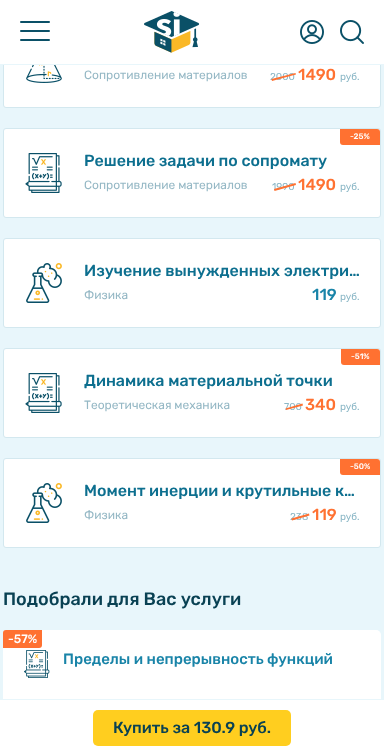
<!DOCTYPE html>
<meta charset="utf-8">
<style>body { margin: 0 } canvas { display: block }</style>
<canvas id="canvas" width="384" height="756"></canvas>
<img id="img1" src="images/1.png" hidden>
<img id="img2" src="images/2.png" hidden>
<img id="img3" src="images/3.png" hidden>
<img id="img4" src="images/4.png" hidden>
<img id="img5" src="images/5.png" hidden>
<img id="img6" src="images/6.png" hidden>
<img id="img7" src="images/7.png" hidden>
<script>
window.onload = function () {
    const canvas = document.getElementById('canvas');
    const context = canvas.getContext('2d');
    context.miterLimit = 4;
    context.fontKerning = 'normal';

    context.fillStyle = 'rgb(232, 246, 251)';
    context.fillRect(0, 0, 384, 756);
    context.fillStyle = 'rgb(255, 255, 255)';
    context.beginPath();
    context.roundRect(3.5, 18.5, 377, 89, 2.5);
    context.fill();
    context.strokeStyle = 'rgb(211, 232, 239)';
    context.stroke();
    context.fillRect(0, 0, 384, 64);
    context.fillStyle = 'rgb(232, 246, 251)';
    context.fillRect(0, 64, 384, 1);
    context.fillStyle = 'rgb(10, 80, 103)';
    context.beginPath();
    context.roundRect(20, 21, 30, 2, 1);
    context.fill();
    context.beginPath();
    context.roundRect(20, 30, 30, 2, 1);
    context.fill();
    context.beginPath();
    context.roundRect(20, 39, 30, 2, 1);
    context.fill();
    context.drawImage(document.getElementById('img1'), 144, 11, 56, 42);
    context.drawImage(document.getElementById('img2'), 300, 20, 24, 24);
    context.drawImage(document.getElementById('img3'), 340, 20, 24, 24);
    context.drawImage(document.getElementById('img4'), 26, 65, 36, 18);
    context.fillStyle = 'rgb(255, 255, 255)';
    context.beginPath();
    context.roundRect(3.5, 128.5, 377, 89, 2.5);
    context.fill();
    context.stroke();
    context.fillStyle = 'rgb(255, 113, 49)';
    context.beginPath();
    context.roundRect(340, 129, 40, 16, [0, 3, 0, 3]);
    context.fill();
    context.drawImage(document.getElementById('img5'), 25, 153, 37, 40);
    context.fillStyle = 'rgb(255, 255, 255)';
    context.beginPath();
    context.roundRect(3.5, 238.5, 377, 89, 2.5);
    context.fill();
    context.stroke();
    context.drawImage(document.getElementById('img6'), 26, 263, 36, 40);
    context.beginPath();
    context.roundRect(3.5, 348.5, 377, 89, 2.5);
    context.fill();
    context.stroke();
    context.fillStyle = 'rgb(255, 113, 49)';
    context.beginPath();
    context.roundRect(341, 349, 39, 16, [0, 3, 0, 3]);
    context.fill();
    context.drawImage(document.getElementById('img5'), 25, 373, 37, 40);
    context.fillStyle = 'rgb(255, 255, 255)';
    context.beginPath();
    context.roundRect(3.5, 458.5, 377, 89, 2.5);
    context.fill();
    context.stroke();
    context.fillStyle = 'rgb(255, 113, 49)';
    context.beginPath();
    context.roundRect(340, 459, 40, 16, [0, 3, 0, 3]);
    context.fill();
    context.drawImage(document.getElementById('img6'), 26, 483, 36, 40);
    context.fillStyle = 'rgb(255, 255, 255)';
    context.beginPath();
    context.roundRect(3, 630, 378, 124, 5);
    context.fill();
    context.fillStyle = 'rgb(255, 113, 49)';
    context.beginPath();
    context.roundRect(3, 630, 39, 18, [3, 0, 3, 0]);
    context.fill();
    context.drawImage(document.getElementById('img7'), 24, 650, 26, 28);
    context.fillStyle = 'rgb(255, 255, 255)';
    context.fillRect(0, 700, 384, 56);
    context.fillStyle = 'rgb(232, 246, 251)';
    context.fillRect(0, 699, 384, 1);
    context.fillStyle = 'rgb(255, 206, 31)';
    context.beginPath();
    context.roundRect(93, 710, 198, 36, 5);
    context.fill();
    context.font = '12px Rubik';
    context.fillStyle = 'rgb(149, 184, 197)';
    context.fillText('Сопротивление материалов', 84, 79);
    context.font = '10px Rubik';
    context.fillStyle = 'rgb(139, 183, 198)';
    context.fillText('2000', 270, 80);
    context.fillStyle = 'rgb(255, 113, 49)';
    context.beginPath();
    context.moveTo(271.5, 79);
    context.lineTo(295.5, 73);
    context.lineTo(296, 74.5);
    context.lineTo(272, 81);
    context.closePath();
    context.fill();
    context.font = '500 16px Rubik';
    context.fillText('1490', 298, 80);
    context.font = '10px Rubik';
    context.fillStyle = 'rgb(139, 183, 198)';
    context.fillText('руб.', 340, 80);
    context.font = '500 8px Rubik';
    context.fillStyle = 'rgb(255, 255, 255)';
    context.fillText('-25%', 350, 139);
    context.font = '500 16px Rubik';
    context.fillStyle = 'rgb(13, 111, 143)';
    context.fillText('Решение задачи по сопромату', 84, 166);
    context.font = '12px Rubik';
    context.fillStyle = 'rgb(149, 184, 197)';
    context.fillText('Сопротивление материалов', 84, 189);
    context.font = '10px Rubik';
    context.fillStyle = 'rgb(139, 183, 198)';
    context.fillText('1990', 272, 190);
    context.fillStyle = 'rgb(255, 113, 49)';
    context.beginPath();
    context.moveTo(274, 189);
    context.lineTo(295.5, 183);
    context.lineTo(296, 185);
    context.lineTo(274.5, 191);
    context.closePath();
    context.fill();
    context.font = '500 16px Rubik';
    context.fillText('1490', 298, 190);
    context.font = '10px Rubik';
    context.fillStyle = 'rgb(139, 183, 198)';
    context.fillText('руб.', 340, 190);
    context.font = '500 16px Rubik';
    context.fillStyle = 'rgb(13, 111, 143)';
    context.fillText('Изучение вынужденных электри…', 84, 276);
    context.font = '12px Rubik';
    context.fillStyle = 'rgb(149, 184, 197)';
    context.fillText('Физика', 84, 299);
    context.font = '500 16px Rubik';
    context.fillStyle = 'rgb(25, 132, 168)';
    context.fillText('119', 312, 300);
    context.font = '10px Rubik';
    context.fillStyle = 'rgb(139, 183, 198)';
    context.fillText('руб.', 340, 300);
    context.font = '500 8px Rubik';
    context.fillStyle = 'rgb(255, 255, 255)';
    context.fillText('-51%', 351, 359);
    context.font = '500 16px Rubik';
    context.fillStyle = 'rgb(13, 111, 143)';
    context.fillText('Динамика материальной точки', 84, 386);
    context.font = '12px Rubik';
    context.fillStyle = 'rgb(149, 184, 197)';
    context.fillText('Теоретическая механика', 84, 409);
    context.font = '10px Rubik';
    context.fillStyle = 'rgb(139, 183, 198)';
    context.fillText('700', 284, 410);
    context.fillStyle = 'rgb(255, 113, 49)';
    context.beginPath();
    context.moveTo(285.5, 408.5);
    context.lineTo(302.5, 403.5);
    context.lineTo(303, 405.5);
    context.lineTo(286, 410);
    context.closePath();
    context.fill();
    context.font = '500 16px Rubik';
    context.fillText('340', 305, 410);
    context.font = '10px Rubik';
    context.fillStyle = 'rgb(139, 183, 198)';
    context.fillText('руб.', 340, 410);
    context.font = '500 8px Rubik';
    context.fillStyle = 'rgb(255, 255, 255)';
    context.fillText('-50%', 350, 469);
    context.font = '500 16px Rubik';
    context.fillStyle = 'rgb(13, 111, 143)';
    context.fillText('Момент инерции и крутильные к…', 84, 496);
    context.font = '12px Rubik';
    context.fillStyle = 'rgb(149, 184, 197)';
    context.fillText('Физика', 84, 519);
    context.font = '10px Rubik';
    context.fillStyle = 'rgb(139, 183, 198)';
    context.fillText('238', 290, 520);
    context.fillStyle = 'rgb(255, 113, 49)';
    context.beginPath();
    context.moveTo(291.5, 518.5);
    context.lineTo(309, 513.5);
    context.lineTo(309.5, 515.5);
    context.lineTo(292, 520.5);
    context.closePath();
    context.fill();
    context.font = '500 16px Rubik';
    context.fillText('119', 312, 520);
    context.font = '10px Rubik';
    context.fillStyle = 'rgb(139, 183, 198)';
    context.fillText('руб.', 340, 520);
    context.font = '500 18px Rubik';
    context.fillStyle = 'rgb(9, 65, 83)';
    context.fillText('Подобрали для Вас услуги', 3, 605);
    context.font = '500 12px Rubik';
    context.fillStyle = 'rgb(255, 255, 255)';
    context.fillText('-57%', 8, 643);
    context.font = '500 15px Rubik';
    context.fillStyle = 'rgb(25, 132, 168)';
    context.fillText('Пределы и непрерывность функций', 63, 664);
    context.font = '500 16px Rubik';
    context.fillStyle = 'rgb(9, 65, 83)';
    context.fillText('Купить за 130.9 руб.', 113, 733);
};
</script>
